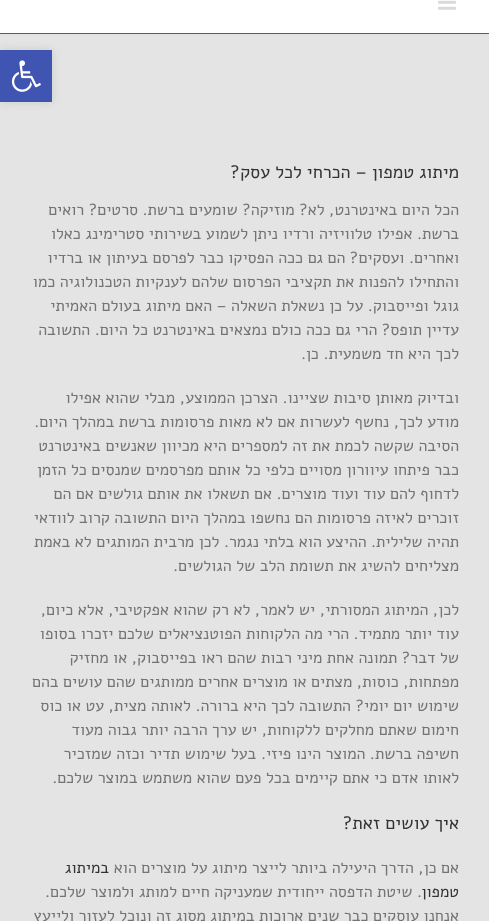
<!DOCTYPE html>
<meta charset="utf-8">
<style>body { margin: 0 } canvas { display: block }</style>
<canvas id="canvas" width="489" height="921"></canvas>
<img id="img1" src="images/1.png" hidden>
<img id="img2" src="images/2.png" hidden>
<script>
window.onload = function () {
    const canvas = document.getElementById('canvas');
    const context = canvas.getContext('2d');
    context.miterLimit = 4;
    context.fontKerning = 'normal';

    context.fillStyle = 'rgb(228, 228, 228)';
    context.fillRect(0, 0, 489, 921);
    context.fillStyle = 'rgba(0, 0, 0, 0.1)';
    context.filter = 'blur(5px)';
    context.beginPath();
    context.rect(0, 50, 52, 52);
    context.fill();
    context.filter = 'none';
    context.fillStyle = 'rgb(64, 84, 178)';
    context.fillRect(0, 50, 52, 52);
    context.drawImage(document.getElementById('img1'), 11, 60, 30, 32);
    context.fillStyle = 'rgb(255, 255, 255)';
    context.fillRect(0, 0, 489, 33);
    context.fillStyle = 'rgb(227, 30, 54)';
    context.fillRect(0, 33, 489, 1);
    context.drawImage(document.getElementById('img2'), 438, 0, 18, 10);
    context.direction = 'rtl';
    context.font = '18px Alef';
    context.fillStyle = 'rgb(51, 51, 51)';
    context.fillText('מיתוג טמפון – הכרחי לכל עסק?', 459, 178);
    context.font = '16px Alef';
    context.fillStyle = 'rgb(116, 116, 116)';
    context.fillText('הכל היום באינטרנט, לא? מוזיקה? שומעים ברשת. סרטים? רואים', 459, 215);
    context.fillText('ברשת. אפילו טלוויזיה ורדיו ניתן לשמוע בשירותי סטרימינג כאלו', 459, 239);
    context.fillText('ואחרים. ועסקים? הם גם ככה הפסיקו כבר לפרסם בעיתון או ברדיו', 459, 263);
    context.fillText('והתחילו להפנות את תקציבי הפרסום שלהם לענקיות הטכנולוגיה כמו', 459, 287);
    context.fillText('גוגל ופייסבוק. על כן נשאלת השאלה – האם מיתוג בעולם האמיתי', 459, 311);
    context.fillText('עדיין תופס? הרי גם ככה כולם נמצאים באינטרנט כל היום. התשובה', 459, 335);
    context.fillText('לכך היא חד משמעית. כן.', 459, 359);
    context.fillText('ובדיוק מאותן סיבות שציינו. הצרכן הממוצע, מבלי שהוא אפילו', 459, 403);
    context.fillText('מודע לכך, נחשף לעשרות אם לא מאות פרסומות ברשת במהלך היום.', 459, 427);
    context.fillText('הסיבה שקשה לכמת את זה למספרים היא מכיוון שאנשים באינטרנט', 459, 451);
    context.fillText('כבר פיתחו עיוורון מסויים כלפי כל אותם מפרסמים שמנסים כל הזמן', 459, 475);
    context.fillText('לדחוף להם עוד ועוד מוצרים. אם תשאלו את אותם גולשים אם הם', 459, 499);
    context.fillText('זוכרים לאיזה פרסומות הם נחשפו במהלך היום התשובה קרוב לוודאי', 459, 523);
    context.fillText('תהיה שלילית. ההיצע הוא בלתי נגמר. לכן מרבית המותגים לא באמת', 459, 547);
    context.fillText('מצליחים להשיג את תשומת הלב של הגולשים.', 459, 571);
    context.fillText('לכן, המיתוג המסורתי, יש לאמר, לא רק שהוא אפקטיבי, אלא כיום,', 459, 615);
    context.fillText('עוד יותר מתמיד. הרי מה הלקוחות הפוטנציאלים שלכם יזכרו בסופו', 459, 639);
    context.fillText('של דבר? תמונה אחת מיני רבות שהם ראו בפייסבוק, או מחזיק', 459, 663);
    context.fillText('מפתחות, כוסות, מצתים או מוצרים אחרים ממותגים שהם עושים בהם', 459, 687);
    context.fillText('שימוש יום יומי? התשובה לכך היא ברורה. לאותה מצית, עט או כוס', 459, 711);
    context.fillText('חימום שאתם מחלקים ללקוחות, יש ערך הרבה יותר גבוה מעוד', 459, 735);
    context.fillText('חשיפה ברשת. המוצר הינו פיזי. בעל שימוש תדיר וכזה שמזכיר', 459, 759);
    context.fillText('לאותו אדם כי אתם קיימים בכל פעם שהוא משתמש במוצר שלכם.', 459, 783);
    context.font = '18px Alef';
    context.fillStyle = 'rgb(51, 51, 51)';
    context.fillText('איך עושים זאת?', 459, 829);
    context.font = '16px Alef';
    context.fillStyle = 'rgb(116, 116, 116)';
    context.fillText('אם כן, הדרך היעילה ביותר לייצר מיתוג על מוצרים הוא', 459, 873);
    context.fillStyle = 'rgb(51, 51, 51)';
    context.fillText('במיתוג', 109, 873);
    context.fillText('טמפון', 459, 897);
    context.fillStyle = 'rgb(116, 116, 116)';
    context.fillText('. שיטת הדפסה ייחודית שמעניקה חיים למותג ולמוצר שלכם.', 422, 897);
    context.fillText('אנחנו עוסקים כבר שנים ארוכות במיתוג מסוג זה ונוכל לעזור ולייעץ', 459, 921);
};
</script>
